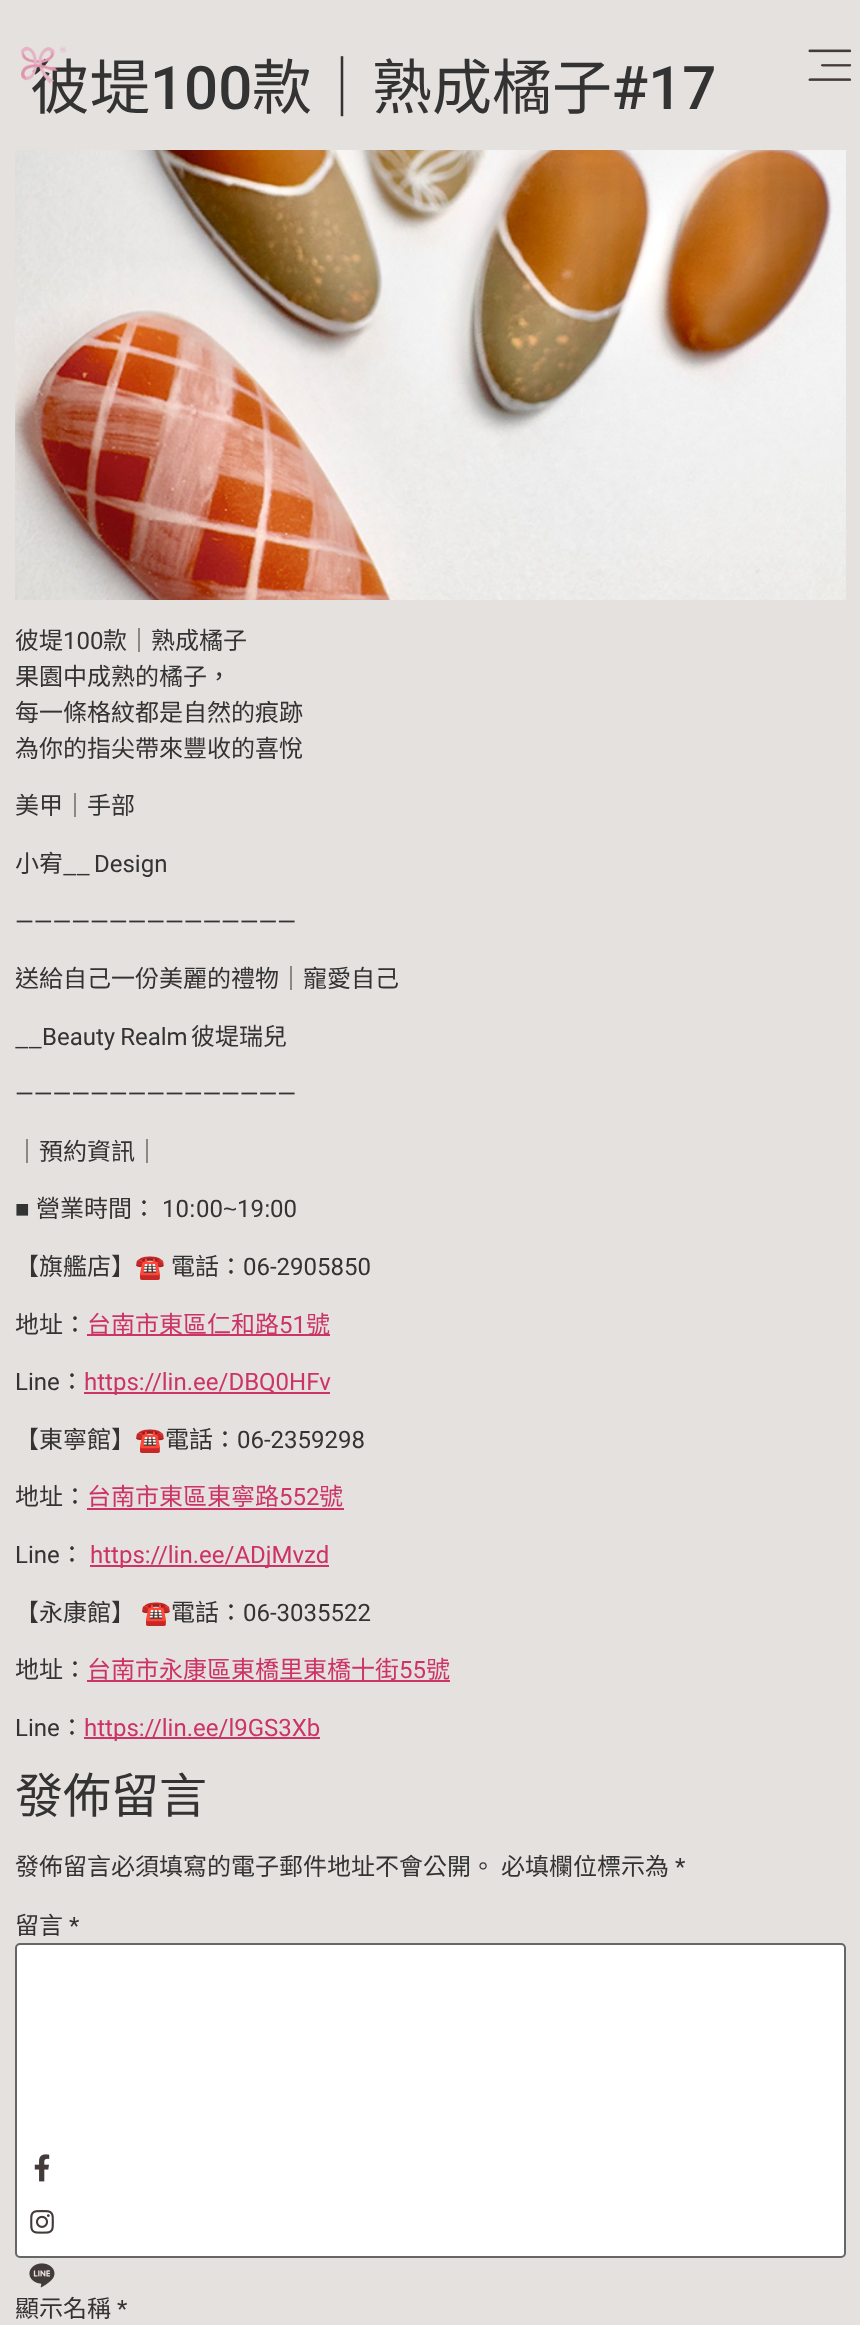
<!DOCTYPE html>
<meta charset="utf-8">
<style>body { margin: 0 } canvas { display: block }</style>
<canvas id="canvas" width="860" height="2325"></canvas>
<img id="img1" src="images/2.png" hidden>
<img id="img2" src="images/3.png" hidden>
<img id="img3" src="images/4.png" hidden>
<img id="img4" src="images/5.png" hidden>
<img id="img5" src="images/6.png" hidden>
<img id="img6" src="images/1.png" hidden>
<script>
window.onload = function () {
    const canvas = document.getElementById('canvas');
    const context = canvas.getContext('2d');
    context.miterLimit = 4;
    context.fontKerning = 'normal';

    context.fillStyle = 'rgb(229, 225, 223)';
    context.fillRect(0, 0, 860, 2325);
    context.fillStyle = 'rgb(255, 255, 255)';
    context.beginPath();
    context.roundRect(16, 1944, 829, 313, 4);
    context.fill();
    context.strokeStyle = 'rgb(102, 102, 102)';
    context.lineWidth = 2;
    context.stroke();
    context.drawImage(document.getElementById('img1'), 34, 2154, 16, 28);
    context.drawImage(document.getElementById('img2'), 30, 2210, 24, 24);
    context.drawImage(document.getElementById('img3'), 29, 2263, 26, 25);
    context.drawImage(document.getElementById('img4'), 808, 49, 44, 32);
    context.drawImage(document.getElementById('img5'), 15, 150, 831, 450);
    context.fillStyle = 'rgb(204, 51, 102)';
    context.fillRect(87, 1334, 243, 2);
    context.fillRect(84, 1392, 246, 2);
    context.fillRect(87, 1508, 257, 2);
    context.fillRect(90, 1565, 239, 2);
    context.fillRect(87, 1680, 363, 2);
    context.fillRect(84, 1737, 236, 2);
    context.font = '60px Noto Sans CJK TC';
    context.fillStyle = 'rgb(51, 51, 51)';
    context.fillText('彼堤', 30, 109);
    context.drawImage(document.getElementById('img6'), 21, 46, 45, 38);
    context.font = '500 60px Roboto';
    context.fillText('100', 150, 109);
    context.font = '60px Noto Sans CJK TC';
    context.fillText('款｜熟成橘子', 252, 109);
    context.font = '500 60px Roboto';
    context.fillText('#17', 612, 109);
    context.font = '24px Noto Sans CJK TC';
    context.fillText('彼堤', 15, 649);
    context.font = '24px Roboto';
    context.fillText('100', 63, 649);
    context.font = '24px Noto Sans CJK TC';
    context.fillText('款｜熟成橘子', 103, 649);
    context.fillText('果園中成熟的橘子，', 15, 685);
    context.fillText('每一條格紋都是自然的痕跡', 15, 721);
    context.fillText('為你的指尖帶來豐收的喜悅', 15, 757);
    context.fillText('美甲｜手部', 15, 814);
    context.fillText('小宥__', 15, 872);
    context.font = '24px Roboto';
    context.fillText('Design', 94, 872);
    context.fillText('———————————————', 15, 930);
    context.font = '24px Noto Sans CJK TC';
    context.fillText('送給自己一份美麗的禮物｜寵愛自己', 15, 987);
    context.fillText('__', 15, 1045);
    context.wordSpacing = '-1px';
    context.font = '24px Roboto';
    context.fillText('Beauty Realm', 42, 1045);
    context.wordSpacing = '0px';
    context.font = '24px Noto Sans CJK TC';
    context.fillText('彼堤瑞兒', 191, 1045);
    context.font = '24px Roboto';
    context.fillText('———————————————', 15, 1102);
    context.font = '24px Noto Sans CJK TC';
    context.fillText('｜預約資訊｜', 15, 1160);
    context.font = '24px Liberation Sans';
    context.fillText('■', 15, 1217);
    context.font = '24px Noto Sans CJK TC';
    context.fillText('營業時間：', 36, 1217);
    context.font = '24px Roboto';
    context.fillText('10', 162, 1217);
    context.font = '24px Liberation Sans';
    context.fillText(':', 189, 1217);
    context.font = '24px Roboto';
    context.fillText('00', 196, 1217);
    context.font = '24px Liberation Sans';
    context.fillText('~', 223, 1217);
    context.font = '24px Roboto';
    context.fillText('19', 237, 1217);
    context.font = '24px Liberation Sans';
    context.fillText(':', 264, 1217);
    context.font = '24px Roboto';
    context.fillText('00', 270, 1217);
    context.font = '24px Noto Sans CJK TC';
    context.fillText('【旗艦店】', 15, 1275);
    context.font = '24px Noto Color Emoji';
    context.fillText('☎️', 135, 1275);
    context.font = '24px Noto Sans CJK TC';
    context.fillText('電話：', 171, 1275);
    context.font = '24px Roboto';
    context.fillText('06-2905850', 243, 1275);
    context.font = '24px Noto Sans CJK TC';
    context.fillText('地址：', 15, 1333);
    context.fillStyle = 'rgb(204, 51, 102)';
    context.fillText('台南市東區仁和路', 87, 1333);
    context.font = '24px Roboto';
    context.fillText('51', 279, 1333);
    context.font = '24px Noto Sans CJK TC';
    context.fillText('號', 306, 1333);
    context.font = '24px Roboto';
    context.fillStyle = 'rgb(51, 51, 51)';
    context.fillText('Line', 15, 1390);
    context.font = '24px Noto Sans CJK TC';
    context.fillText('：', 60, 1390);
    context.font = '24px Roboto';
    context.fillStyle = 'rgb(204, 51, 102)';
    context.fillText('https://lin.ee/DBQ0HFv', 84, 1390);
    context.font = '24px Noto Sans CJK TC';
    context.fillStyle = 'rgb(51, 51, 51)';
    context.fillText('【東寧館】', 15, 1448);
    context.font = '24px Noto Color Emoji';
    context.fillText('☎️', 135, 1448);
    context.font = '24px Noto Sans CJK TC';
    context.fillText('電話：', 165, 1448);
    context.font = '24px Roboto';
    context.fillText('06-2359298', 237, 1448);
    context.font = '24px Noto Sans CJK TC';
    context.fillText('地址：', 15, 1505);
    context.fillStyle = 'rgb(204, 51, 102)';
    context.fillText('台南市東區東寧路', 87, 1505);
    context.font = '24px Roboto';
    context.fillText('552', 279, 1505);
    context.font = '24px Noto Sans CJK TC';
    context.fillText('號', 319, 1505);
    context.font = '24px Roboto';
    context.fillStyle = 'rgb(51, 51, 51)';
    context.fillText('Line', 15, 1563);
    context.font = '24px Noto Sans CJK TC';
    context.fillText('：', 60, 1563);
    context.font = '24px Roboto';
    context.fillStyle = 'rgb(204, 51, 102)';
    context.fillText('https://lin.ee/ADjMvzd', 90, 1563);
    context.font = '24px Noto Sans CJK TC';
    context.fillStyle = 'rgb(51, 51, 51)';
    context.fillText('【永康館】', 15, 1621);
    context.font = '24px Noto Color Emoji';
    context.fillText('☎️', 141, 1621);
    context.font = '24px Noto Sans CJK TC';
    context.fillText('電話：', 171, 1621);
    context.font = '24px Roboto';
    context.fillText('06-3035522', 243, 1621);
    context.font = '24px Noto Sans CJK TC';
    context.fillText('地址：', 15, 1678);
    context.fillStyle = 'rgb(204, 51, 102)';
    context.fillText('台南市永康區東橋里東橋十街', 87, 1678);
    context.font = '24px Roboto';
    context.fillText('55', 399, 1678);
    context.font = '24px Noto Sans CJK TC';
    context.fillText('號', 426, 1678);
    context.font = '24px Roboto';
    context.fillStyle = 'rgb(51, 51, 51)';
    context.fillText('Line', 15, 1736);
    context.font = '24px Noto Sans CJK TC';
    context.fillText('：', 60, 1736);
    context.font = '24px Roboto';
    context.fillStyle = 'rgb(204, 51, 102)';
    context.fillText('https://lin.ee/l9GS3Xb', 84, 1736);
    context.font = '48px Noto Sans CJK TC';
    context.fillStyle = 'rgb(51, 51, 51)';
    context.fillText('發佈留言', 15, 1813);
    context.font = '24px Noto Sans CJK TC';
    context.fillText('發佈留言必須填寫的電子郵件地址不會公開。', 15, 1875);
    context.fillText('必填欄位標示為', 501, 1875);
    context.font = '24px Roboto';
    context.fillText('*', 675, 1875);
    context.font = '24px Noto Sans CJK TC';
    context.fillText('留言', 15, 1934);
    context.font = '24px Roboto';
    context.fillText('*', 69, 1934);
    context.font = '24px Noto Sans CJK TC';
    context.fillText('顯示名稱', 15, 2317);
    context.font = '24px Roboto';
    context.fillText('*', 117, 2317);
};
</script>
